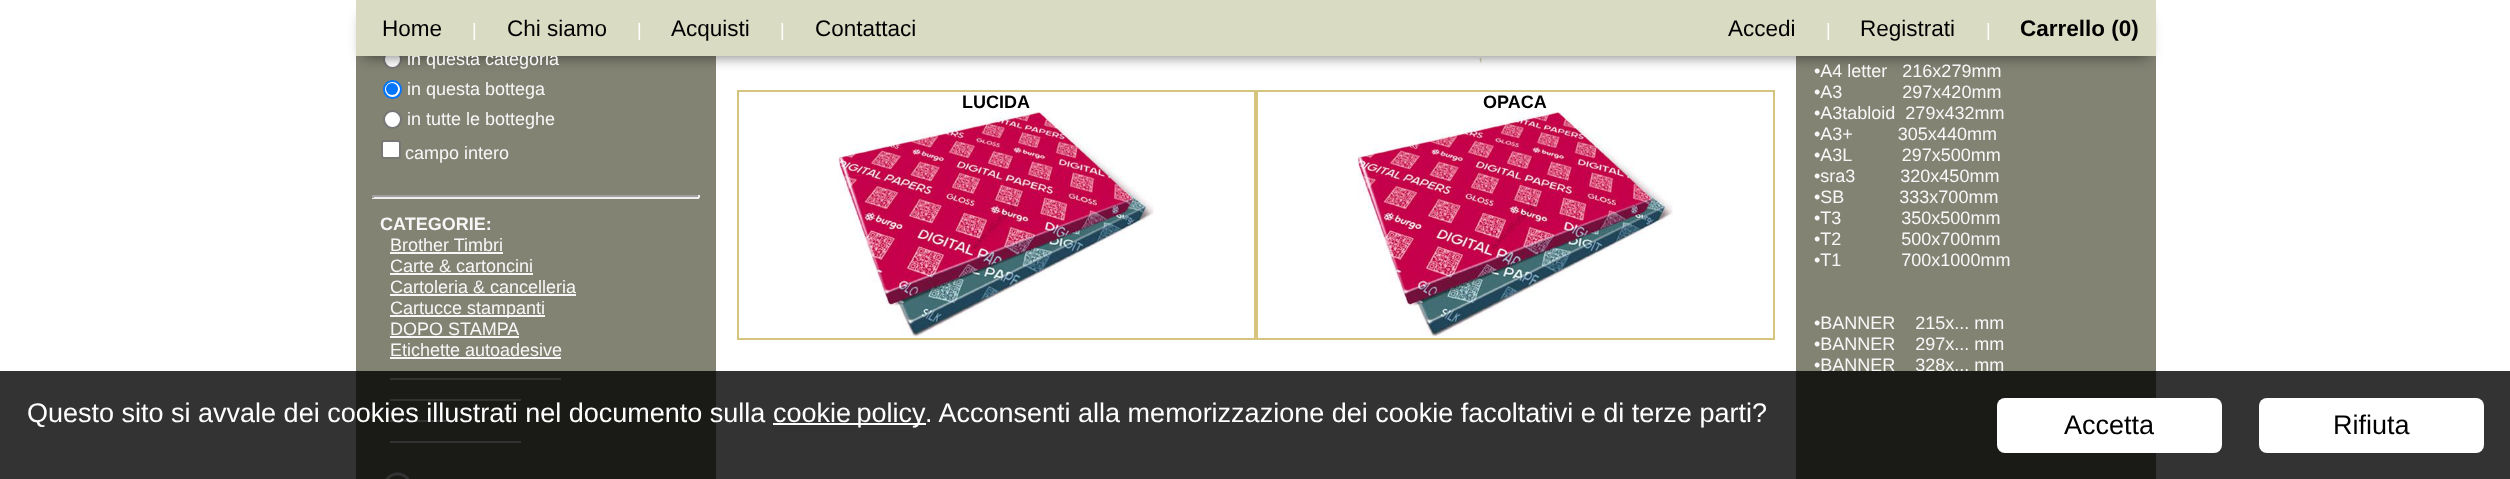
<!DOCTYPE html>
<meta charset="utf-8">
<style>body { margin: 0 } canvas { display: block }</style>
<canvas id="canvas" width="2510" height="479"></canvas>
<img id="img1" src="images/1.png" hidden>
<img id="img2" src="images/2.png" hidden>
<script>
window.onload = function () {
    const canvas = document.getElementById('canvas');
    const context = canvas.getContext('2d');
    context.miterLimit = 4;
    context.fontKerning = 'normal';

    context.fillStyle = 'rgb(255, 255, 255)';
    context.fillRect(0, 0, 2510, 479);
    context.fillStyle = 'rgb(131, 131, 116)';
    context.fillRect(356, 56, 360, 423);
    context.fillStyle = 'rgb(255, 255, 255)';
    context.beginPath();
    context.arc(392.5, 59.5, 8.5, 0, 2 * Math.PI);
    context.fill();
    context.strokeStyle = 'rgb(118, 118, 118)';
    context.lineWidth = 2;
    context.stroke();
    context.fillStyle = 'rgb(131, 131, 116)';
    context.fillRect(1796, 56, 360, 423);
    context.fillStyle = 'rgba(0, 0, 0, 0.5)';
    context.filter = 'blur(7px)';
    context.beginPath();
    context.rect(363, 17, 1785, 40);
    context.fill();
    context.filter = 'none';
    context.fillStyle = 'rgb(255, 255, 255)';
    context.beginPath();
    context.arc(392.5, 89.5, 8.5, 0, 2 * Math.PI);
    context.fill();
    context.strokeStyle = 'rgb(0, 117, 255)';
    context.stroke();
    context.fillStyle = 'rgb(0, 117, 255)';
    context.beginPath();
    context.arc(392, 89, 6, 0, 2 * Math.PI);
    context.fill();
    context.fillStyle = 'rgb(255, 255, 255)';
    context.beginPath();
    context.arc(392.5, 119.5, 8.5, 0, 2 * Math.PI);
    context.fill();
    context.strokeStyle = 'rgb(118, 118, 118)';
    context.stroke();
    context.beginPath();
    context.roundRect(382, 141, 18, 17, 2);
    context.fill();
    context.stroke();
    context.fillStyle = 'rgb(159, 159, 159)';
    context.fillRect(372, 195, 327, 2);
    context.fillStyle = 'rgb(238, 238, 238)';
    context.fillRect(698, 195, 2, 3);
    context.fillRect(372, 197, 327, 2);
    context.fillStyle = 'rgb(159, 159, 159)';
    context.fillRect(372, 195, 2, 3);
    context.fillStyle = 'rgb(247, 247, 247)';
    context.fillRect(390, 252, 113, 2);
    context.fillRect(390, 273, 143, 2);
    context.fillRect(390, 294, 186, 2);
    context.fillRect(390, 315, 155, 2);
    context.fillRect(390, 336, 129, 2);
    context.fillRect(390, 357, 171, 2);
    context.fillRect(390, 378, 171, 2);
    context.fillRect(390, 399, 131, 2);
    context.fillRect(390, 420, 63, 2);
    context.fillRect(390, 441, 131, 2);
    context.drawImage(document.getElementById('img1'), 385, 472, 25, 7);
    context.fillStyle = 'rgb(215, 196, 124)';
    context.fillRect(737, 90, 1038, 2);
    context.fillRect(1254, 90, 2, 249);
    context.fillRect(737, 338, 519, 2);
    context.fillRect(737, 90, 2, 249);
    context.drawImage(document.getElementById('img2'), 838, 112, 316, 225);
    context.fillRect(1773, 90, 2, 249);
    context.fillRect(1256, 338, 519, 2);
    context.fillRect(1256, 90, 2, 249);
    context.drawImage(document.getElementById('img2'), 1357, 112, 316, 225);
    context.font = '18px Liberation Sans';
    context.fillStyle = 'rgb(247, 247, 247)';
    context.fillText('in questa categoria', 407, 65);
    context.fillStyle = 'rgb(218, 219, 195)';
    context.fillRect(356, 0, 1800, 56);
    context.font = 'bold 22.5px Liberation Sans';
    context.fillStyle = 'rgb(0, 0, 0)';
    context.fillText('Carrello (0)', 2020, 36);
    context.font = '18px Liberation Sans';
    context.fillStyle = 'rgb(255, 255, 255)';
    context.fillText('|', 1986, 36);
    context.font = '22.5px Liberation Sans';
    context.fillStyle = 'rgb(0, 0, 0)';
    context.fillText('Registrati', 1860, 36);
    context.font = '18px Liberation Sans';
    context.fillStyle = 'rgb(255, 255, 255)';
    context.fillText('|', 1826, 36);
    context.font = '22.5px Liberation Sans';
    context.fillStyle = 'rgb(0, 0, 0)';
    context.fillText('Accedi', 1728, 36);
    context.fillText('Contattaci', 815, 36);
    context.font = '18px Liberation Sans';
    context.fillStyle = 'rgb(255, 255, 255)';
    context.fillText('|', 780, 36);
    context.font = '22.5px Liberation Sans';
    context.fillStyle = 'rgb(0, 0, 0)';
    context.fillText('Acquisti', 671, 36);
    context.font = '18px Liberation Sans';
    context.fillStyle = 'rgb(255, 255, 255)';
    context.fillText('|', 637, 36);
    context.font = '22.5px Liberation Sans';
    context.fillStyle = 'rgb(0, 0, 0)';
    context.fillText('Chi siamo', 507, 36);
    context.font = '18px Liberation Sans';
    context.fillStyle = 'rgb(255, 255, 255)';
    context.fillText('|', 472, 36);
    context.font = '22.5px Liberation Sans';
    context.fillStyle = 'rgb(0, 0, 0)';
    context.fillText('Home', 382, 36);
    context.font = '18px Liberation Sans';
    context.fillStyle = 'rgb(247, 247, 247)';
    context.fillText('in questa bottega', 407, 95);
    context.fillText('in tutte le botteghe', 407, 125);
    context.fillText('campo intero', 405, 159);
    context.font = 'bold 18px Liberation Sans';
    context.fillText('CATEGORIE:', 380, 230);
    context.font = '18px Liberation Sans';
    context.fillText('Brother Timbri', 390, 251);
    context.fillText('Carte & cartoncini', 390, 272);
    context.fillText('Cartoleria & cancelleria', 390, 293);
    context.fillText('Cartucce stampanti', 390, 314);
    context.fillText('DOPO STAMPA', 390, 335);
    context.fillText('Etichette autoadesive', 390, 356);
    context.fillStyle = 'rgb(174, 172, 136)';
    context.fillText(',', 1478, 60);
    context.font = 'bold 18px Liberation Sans';
    context.fillStyle = 'rgb(0, 0, 0)';
    context.fillText('LUCIDA', 962, 108);
    context.fillText('OPACA', 1483, 108);
    context.font = '18px Liberation Sans';
    context.fillStyle = 'rgb(247, 247, 247)';
    context.fillText('•A4 letter   216x279mm', 1814, 77);
    context.fillText('•A3            297x420mm', 1814, 98);
    context.fillText('•A3tabloid  279x432mm', 1814, 119);
    context.fillText('•A3+         305x440mm', 1814, 140);
    context.fillText('•A3L          297x500mm', 1814, 161);
    context.fillText('•sra3         320x450mm', 1814, 182);
    context.fillText('•SB           333x700mm', 1814, 203);
    context.fillText('•T3            350x500mm', 1814, 224);
    context.fillText('•T2            500x700mm', 1814, 245);
    context.fillText('•T1            700x1000mm', 1814, 266);
    context.fillText('•BANNER    215x... mm', 1814, 329);
    context.fillText('•BANNER    297x... mm', 1814, 350);
    context.fillText('•BANNER    328x... mm', 1814, 371);
    context.fillStyle = 'rgba(0, 0, 0, 0.8)';
    context.fillRect(0, 371, 2510, 108);
    context.font = '27px Liberation Sans';
    context.fillStyle = 'rgb(255, 255, 255)';
    context.fillText('Questo sito si avvale dei cookies illustrati nel documento sulla', 27, 422);
    context.fillRect(773, 423, 153, 2);
    context.wordSpacing = '-2px';
    context.fillText('cookie policy', 773, 422);
    context.wordSpacing = '0px';
    context.fillText('. Acconsenti alla memorizzazione dei cookie facoltativi e di terze parti?', 925, 422);
    context.beginPath();
    context.roundRect(1997, 398, 225, 55, 8);
    context.fill();
    context.fillStyle = 'rgb(0, 0, 0)';
    context.fillText('Accetta', 2064, 434);
    context.fillStyle = 'rgb(255, 255, 255)';
    context.beginPath();
    context.roundRect(2259, 398, 225, 55, 8);
    context.fill();
    context.fillStyle = 'rgb(0, 0, 0)';
    context.fillText('Rifiuta', 2333, 434);
};
</script>
